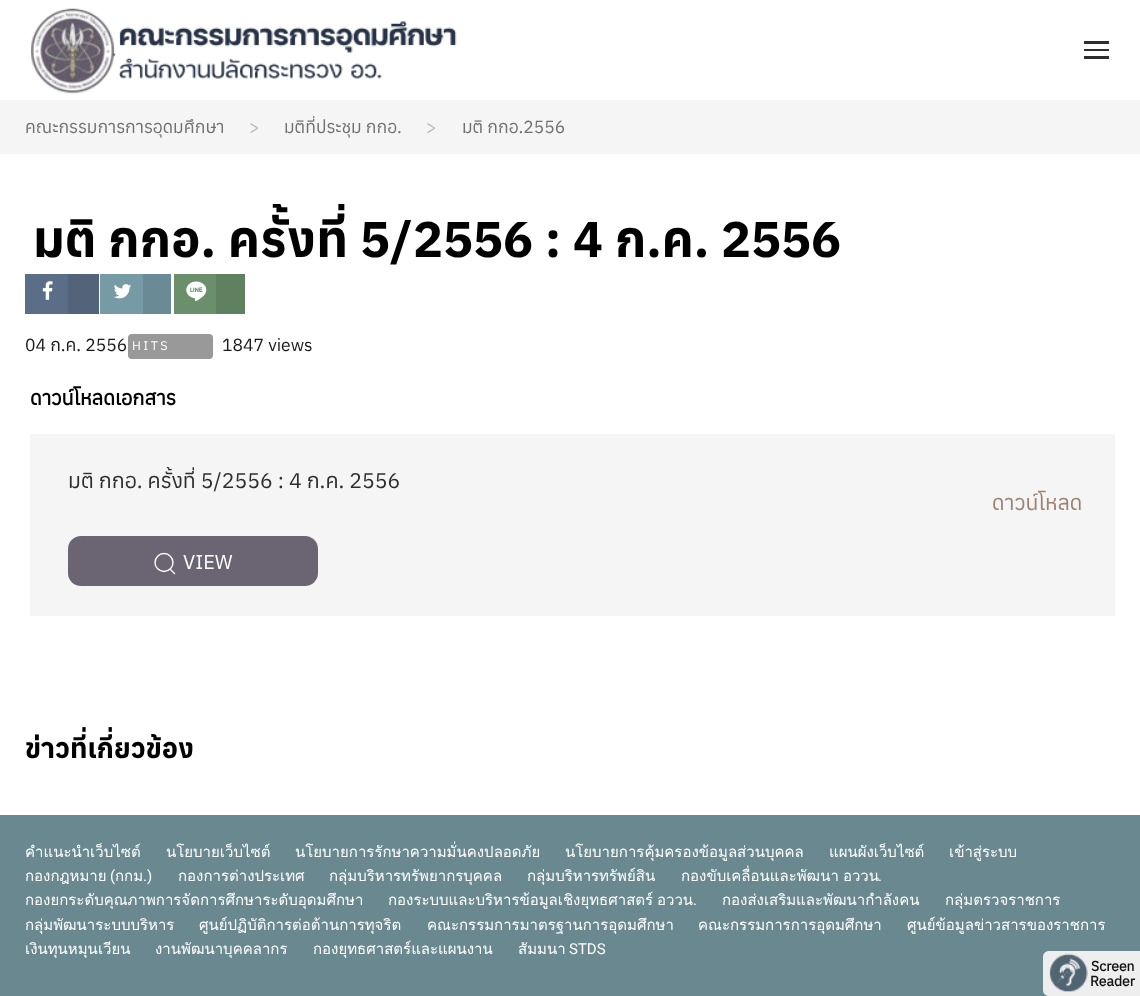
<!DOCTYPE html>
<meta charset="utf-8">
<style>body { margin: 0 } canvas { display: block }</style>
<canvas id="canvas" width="1140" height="996"></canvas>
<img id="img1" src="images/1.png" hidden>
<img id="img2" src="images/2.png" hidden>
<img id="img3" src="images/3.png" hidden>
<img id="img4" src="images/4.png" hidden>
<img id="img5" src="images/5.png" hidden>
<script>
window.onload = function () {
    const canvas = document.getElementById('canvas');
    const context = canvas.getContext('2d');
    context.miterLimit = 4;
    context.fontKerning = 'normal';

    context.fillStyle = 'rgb(255, 255, 255)';
    context.fillRect(0, 0, 1140, 996);
    context.drawImage(document.getElementById('img1'), 31, 8, 426, 86);
    context.fillStyle = 'rgb(46, 46, 47)';
    context.fillRect(1084, 41, 25, 3);
    context.fillRect(1084, 49, 25, 2);
    context.fillRect(1084, 56, 25, 3);
    context.fillStyle = 'rgb(245, 245, 245)';
    context.fillRect(0, 100, 1140, 54);
    context.fillStyle = 'rgb(91, 110, 135)';
    context.fillRect(25, 274, 43, 40);
    context.drawImage(document.getElementById('img2'), 42, 281, 11, 19);
    context.fillStyle = 'rgb(82, 99, 122)';
    context.fillRect(68, 274, 31, 40);
    context.fillStyle = 'rgb(118, 154, 166)';
    context.fillRect(100, 274, 43, 40);
    context.drawImage(document.getElementById('img3'), 114, 284, 17, 15);
    context.fillStyle = 'rgb(106, 139, 149)';
    context.fillRect(143, 274, 28, 40);
    context.fillStyle = 'rgb(106, 143, 106)';
    context.fillRect(174, 274, 42, 40);
    context.drawImage(document.getElementById('img4'), 186, 281, 21, 20);
    context.fillStyle = 'rgb(95, 129, 95)';
    context.fillRect(216, 274, 29, 40);
    context.fillStyle = 'rgb(153, 153, 153)';
    context.beginPath();
    context.roundRect(128, 334, 85, 25, 4);
    context.fill();
    context.fillStyle = 'rgb(245, 245, 245)';
    context.fillRect(30, 434, 1085, 182);
    context.fillStyle = 'rgb(107, 100, 115)';
    context.beginPath();
    context.roundRect(68, 536, 250, 50, 13);
    context.fill();
    context.beginPath();
    context.arc(164, 562.5, 9, 0, 2 * Math.PI);
    context.strokeStyle = 'rgb(255, 255, 255)';
    context.lineWidth = 1.4;
    context.stroke();
    context.beginPath();
    context.moveTo(170, 569);
    context.lineTo(175, 574);
    context.closePath();
    context.stroke();
    context.fillStyle = 'rgb(105, 136, 143)';
    context.fillRect(0, 815, 1140, 181);
    context.fillStyle = 'rgb(238, 238, 238)';
    context.beginPath();
    context.moveTo(1049, 951);
    context.lineTo(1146, 951);
    context.lineTo(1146, 996);
    context.lineTo(1049, 996);
    context.bezierCurveTo(1045.5, 996, 1043, 993.5, 1043, 990);
    context.lineTo(1043, 957);
    context.bezierCurveTo(1043, 953.5, 1045.5, 951, 1049, 951);
    context.closePath();
    context.fill();
    context.drawImage(document.getElementById('img5'), 1049, 953, 39, 39);
    context.font = '17.5px Anuphan';
    context.fillStyle = 'rgb(113, 113, 114)';
    context.fillText('คณะกรรมการการอุดมศึกษา', 25, 133);
    context.fillStyle = 'rgb(181, 181, 182)';
    context.fillText('>', 249, 133);
    context.fillStyle = 'rgb(113, 113, 114)';
    context.fillText('มติที่ประชุม กกอ.', 284, 133);
    context.fillStyle = 'rgb(181, 181, 182)';
    context.fillText('>', 426, 133);
    context.fillStyle = 'rgb(113, 113, 114)';
    context.fillText('มติ กกอ.2556', 462, 133);
    context.save();
    context.beginPath();
    context.rect(25, 204, 1090, 425);
    context.clip();
    context.font = 'bold 50px Anuphan';
    context.fillStyle = 'rgb(0, 0, 0)';
    context.fillText('มติ กกอ. ครั้งที่ 5/2556 : 4 ก.ค. 2556', 33, 257);
    context.restore();
    context.fillStyle = 'rgb(26, 26, 27)';
    context.fillText('04 ก.ค. 2556', 25, 351);
    context.letterSpacing = '2.5px';
    context.font = '12.5px Anuphan';
    context.fillStyle = 'rgb(255, 255, 255)';
    context.fillText('HITS', 132, 350);
    context.letterSpacing = '0px';
    context.font = '17.5px Anuphan';
    context.fillStyle = 'rgb(26, 26, 27)';
    context.fillText('1847 views', 222, 351);
    context.font = 'bold 20px "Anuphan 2"';
    context.fillStyle = 'rgb(0, 0, 0)';
    context.fillText('ดาวน์โหลดเอกสาร', 30, 405);
    context.font = '21.25px Anuphan';
    context.fillStyle = 'rgb(46, 46, 47)';
    context.fillText('มติ กกอ. ครั้งที่ 5/2556 : 4 ก.ค. 2556', 68, 488);
    context.fillStyle = 'rgb(158, 129, 113)';
    context.fillText('ดาวน์โหลด', 992, 510);
    context.font = '20px Anuphan';
    context.fillStyle = 'rgb(255, 255, 255)';
    context.fillText('VIEW', 183, 569);
    context.font = 'bold 27.5px Anuphan';
    context.fillStyle = 'rgb(0, 0, 0)';
    context.fillText('ข่าวที่เกี่ยวข้อง', 25, 758);
    context.font = '15px Loma';
    context.fillStyle = 'rgb(255, 255, 255)';
    context.fillText('คำแนะนำเว็บไซต์', 25, 857);
    context.fillText('นโยบายเว็บไซต์', 166, 857);
    context.fillText('นโยบายการรักษาความมั่นคงปลอดภัย', 295, 857);
    context.fillText('นโยบายการคุ้มครองข้อมูลส่วนบุคคล', 565, 857);
    context.fillText('แผนผังเว็บไซต์', 829, 857);
    context.fillText('เข้าสู่ระบบ', 949, 857);
    context.fillText('กองกฎหมาย', 25, 881);
    context.font = '15px Roboto';
    context.fillText('(', 110, 881);
    context.font = '15px Loma';
    context.fillText('กกม', 115, 881);
    context.font = '15px Roboto';
    context.fillText('.)', 143, 881);
    context.font = '15px Loma';
    context.fillText('กองการต่างประเทศ', 178, 881);
    context.fillText('กลุ่มบริหารทรัพยากรบุคคล', 329, 881);
    context.fillText('กลุ่มบริหารทรัพย์สิน', 527, 881);
    context.wordSpacing = '-1px';
    context.fillText('กองขับเคลื่อนและพัฒนา อววน', 681, 881);
    context.wordSpacing = '0px';
    context.font = '15px Roboto';
    context.fillText('.', 878, 881);
    context.font = '15px Loma';
    context.fillText('กองยกระดับคุณภาพการจัดการศึกษาระดับอุดมศึกษา', 25, 905);
    context.fillText('กองระบบและบริหารข้อมูลเชิงยุทธศาสตร์', 388, 905);
    context.fillText('อววน', 657, 905);
    context.font = '15px Roboto';
    context.fillText('.', 693, 905);
    context.font = '15px Loma';
    context.fillText('กองส่งเสริมและพัฒนากำลังคน', 722, 905);
    context.fillText('กลุ่มตรวจราชการ', 945, 905);
    context.fillText('กลุ่มพัฒนาระบบบริหาร', 25, 930);
    context.fillText('ศูนย์ปฏิบัติการต่อต้านการทุจริต', 199, 930);
    context.fillText('คณะกรรมการมาตรฐานการอุดมศึกษา', 427, 930);
    context.fillText('คณะกรรมการการอุดมศึกษา', 698, 930);
    context.fillText('ศูนย์ข้อมูลข่าวสารของราชการ', 907, 930);
    context.fillText('เงินทุนหมุนเวียน', 25, 954);
    context.fillText('งานพัฒนาบุคคลากร', 155, 954);
    context.fillText('กองยุทธศาสตร์และแผนงาน', 313, 954);
    context.fillText('สัมมนา', 518, 954);
    context.font = '15px Roboto';
    context.fillText('STDS', 569, 954);
    context.font = 'bold 14px "Anuphan 2"';
    context.fillStyle = 'rgb(17, 17, 17)';
    context.fillText('Screen', 1091, 971);
    context.fillText('Reader', 1090, 986);
};
</script>
